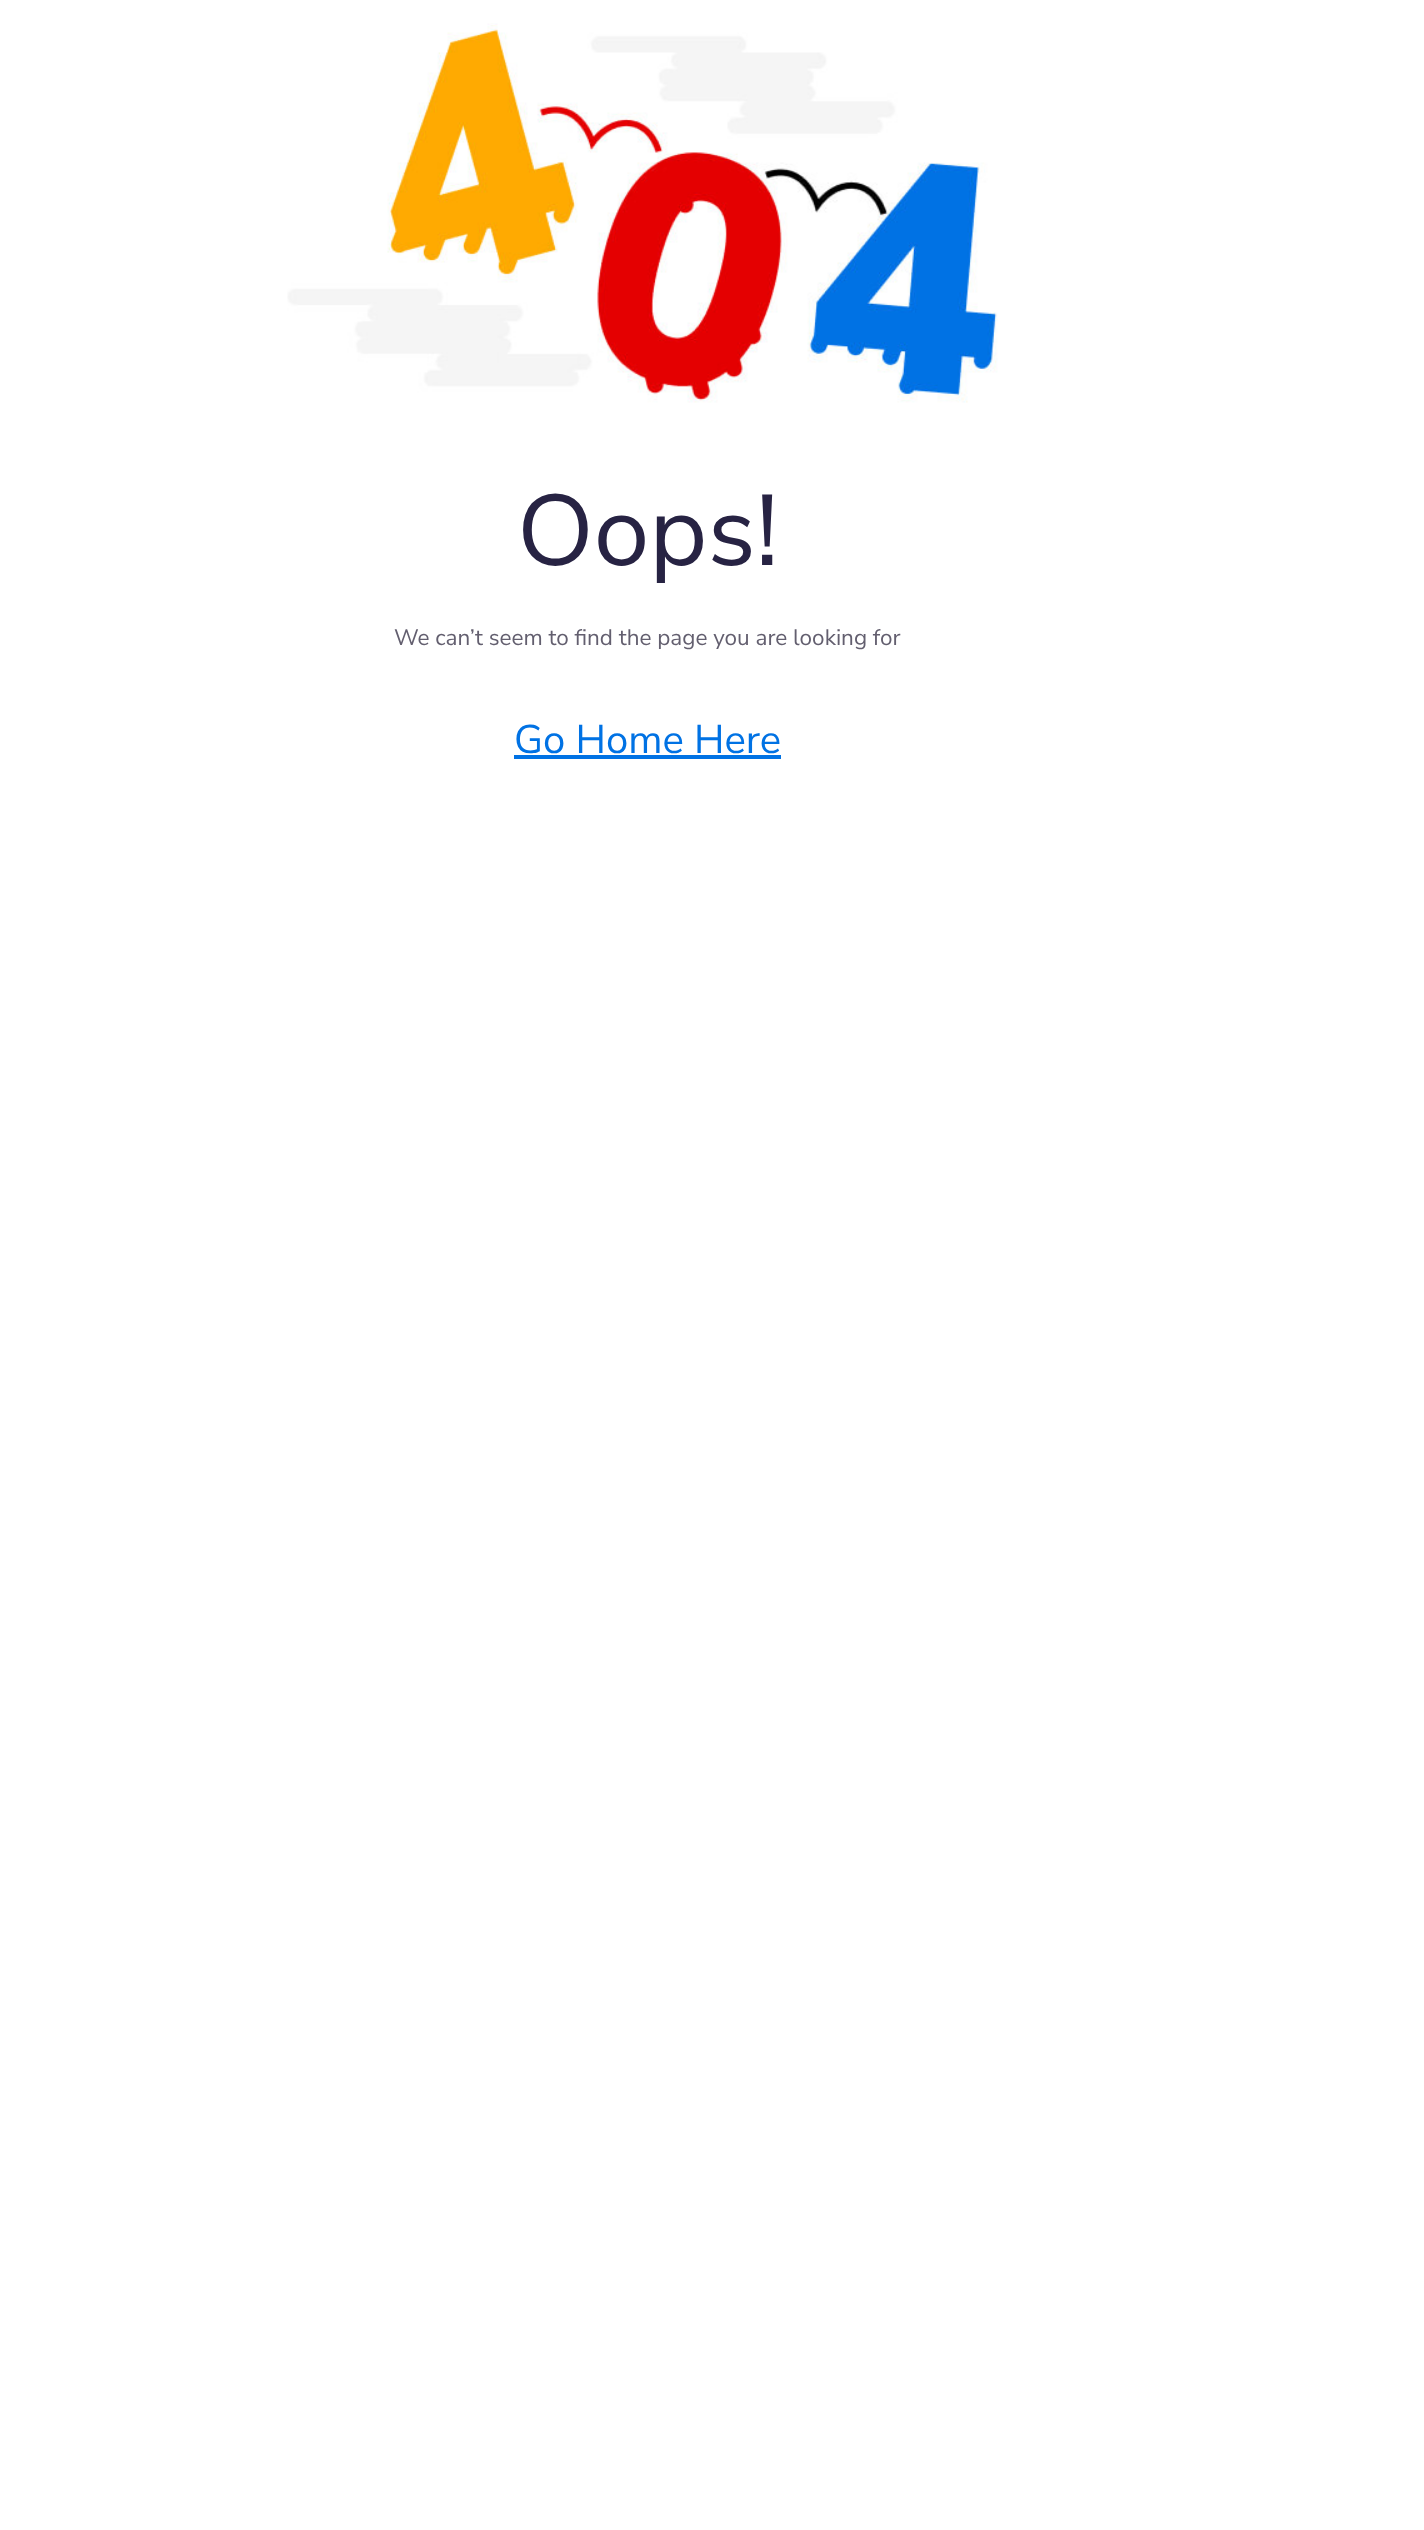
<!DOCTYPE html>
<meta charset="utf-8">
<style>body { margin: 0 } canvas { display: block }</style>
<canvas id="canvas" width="1424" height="2530"></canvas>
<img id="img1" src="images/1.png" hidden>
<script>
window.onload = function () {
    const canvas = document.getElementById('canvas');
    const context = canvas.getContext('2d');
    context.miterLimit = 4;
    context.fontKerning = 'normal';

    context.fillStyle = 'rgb(255, 255, 255)';
    context.fillRect(0, 0, 1424, 2530);
    context.drawImage(document.getElementById('img1'), 287, 23, 711, 380);
    context.fillStyle = 'rgb(0, 114, 228)';
    context.fillRect(514, 755, 267, 4);
    context.font = '200 100px Nunito Sans';
    context.fillStyle = 'rgb(39, 35, 67)';
    context.fillText('Oops!', 517, 565);
    context.font = '200 22.5px Nunito Sans';
    context.fillStyle = 'rgb(99, 95, 111)';
    context.fillText('We can’t seem to find the page you are looking for', 394, 645);
    context.font = '200 40px Nunito Sans';
    context.fillStyle = 'rgb(0, 114, 228)';
    context.fillText('Go Home Here', 514, 753);
};
</script>
